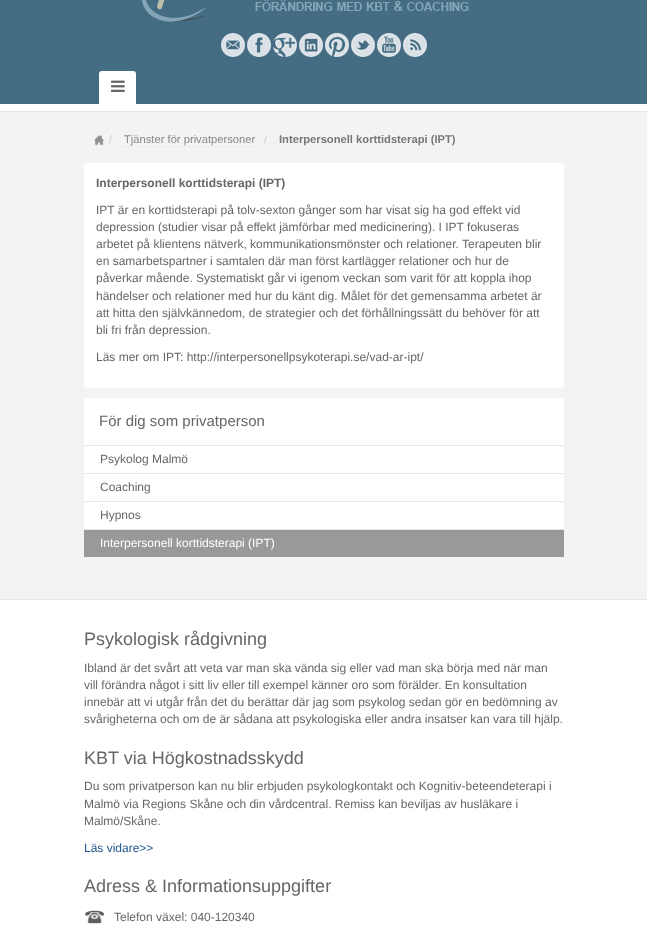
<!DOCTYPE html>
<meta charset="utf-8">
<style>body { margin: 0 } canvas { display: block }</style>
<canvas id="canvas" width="647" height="933"></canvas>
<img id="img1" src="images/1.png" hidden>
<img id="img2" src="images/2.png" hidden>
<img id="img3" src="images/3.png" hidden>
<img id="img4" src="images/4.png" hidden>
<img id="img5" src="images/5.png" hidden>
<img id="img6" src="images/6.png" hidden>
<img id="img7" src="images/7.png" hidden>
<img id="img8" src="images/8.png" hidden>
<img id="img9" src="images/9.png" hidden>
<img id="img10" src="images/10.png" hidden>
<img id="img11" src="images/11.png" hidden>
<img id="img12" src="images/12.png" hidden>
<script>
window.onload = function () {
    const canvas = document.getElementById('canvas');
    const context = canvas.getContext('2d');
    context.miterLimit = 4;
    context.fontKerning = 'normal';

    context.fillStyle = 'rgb(255, 255, 255)';
    context.fillRect(0, 0, 647, 933);
    context.fillStyle = 'rgb(68, 108, 130)';
    context.fillRect(0, 0, 647, 104);
    context.fillStyle = 'rgb(230, 230, 230)';
    context.fillRect(0, 111, 647, 1);
    context.drawImage(document.getElementById('img1'), 141, 0, 328, 22);
    context.drawImage(document.getElementById('img2'), 221, 33, 24, 24);
    context.drawImage(document.getElementById('img3'), 247, 33, 24, 24);
    context.drawImage(document.getElementById('img4'), 273, 33, 24, 24);
    context.drawImage(document.getElementById('img5'), 299, 33, 24, 24);
    context.drawImage(document.getElementById('img6'), 325, 33, 24, 24);
    context.drawImage(document.getElementById('img7'), 351, 33, 24, 24);
    context.drawImage(document.getElementById('img8'), 377, 33, 24, 24);
    context.drawImage(document.getElementById('img9'), 403, 33, 24, 24);
    context.fillStyle = 'rgb(255, 255, 255)';
    context.beginPath();
    context.roundRect(99, 71, 37, 33, [3, 3, 0, 0]);
    context.fill();
    context.drawImage(document.getElementById('img10'), 111, 80, 14, 12);
    context.fillStyle = 'rgb(243, 243, 243)';
    context.fillRect(0, 112, 647, 487);
    context.drawImage(document.getElementById('img11'), 94, 135, 10, 10);
    context.beginPath();
    context.moveTo(120, 146.5);
    context.lineTo(259, 146.5);
    context.strokeStyle = 'rgb(229, 229, 229)';
    context.setLineDash([1, 1]);
    context.stroke();
    context.fillStyle = 'rgb(255, 255, 255)';
    context.beginPath();
    context.roundRect(84, 163, 480, 225, 4);
    context.fill();
    context.beginPath();
    context.roundRect(84, 398, 480, 159, 4);
    context.fill();
    context.beginPath();
    context.moveTo(84, 445.5);
    context.lineTo(564, 445.5);
    context.strokeStyle = 'rgb(209, 209, 209)';
    context.stroke();
    context.beginPath();
    context.moveTo(84, 473.5);
    context.lineTo(564, 473.5);
    context.stroke();
    context.beginPath();
    context.moveTo(84, 501.5);
    context.lineTo(564, 501.5);
    context.stroke();
    context.beginPath();
    context.moveTo(84, 529.5);
    context.lineTo(564, 529.5);
    context.stroke();
    context.fillStyle = 'rgb(153, 153, 153)';
    context.fillRect(84, 530, 480, 27);
    context.fillStyle = 'rgb(229, 229, 229)';
    context.fillRect(0, 599, 647, 1);
    context.drawImage(document.getElementById('img12'), 85, 910, 19, 14);
    context.font = '11.2px Liberation Sans';
    context.fillStyle = 'rgb(204, 204, 204)';
    context.fillText('/', 109, 143);
    context.fillStyle = 'rgb(136, 136, 136)';
    context.fillText('Tjänster för privatpersoner', 124, 143);
    context.fillStyle = 'rgb(204, 204, 204)';
    context.fillText('/', 264, 143);
    context.font = 'bold 11.2px Liberation Sans';
    context.fillStyle = 'rgb(119, 119, 119)';
    context.fillText('Interpersonell korttidsterapi (IPT)', 279, 143);
    context.font = 'bold 12px Liberation Sans';
    context.fillStyle = 'rgb(102, 102, 102)';
    context.fillText('Interpersonell korttidsterapi (IPT)', 96, 187);
    context.font = '12px Liberation Sans';
    context.fillText('IPT är en korttidsterapi på tolv-sexton gånger som har visat sig ha god effekt vid', 96, 214);
    context.fillText('depression (studier visar på effekt jämförbar med medicinering). I IPT fokuseras', 96, 231);
    context.fillText('arbetet på klientens nätverk, kommunikationsmönster och relationer. Terapeuten blir', 96, 248);
    context.fillText('en samarbetspartner i samtalen där man först kartlägger relationer och hur de', 96, 265);
    context.fillText('påverkar mående. Systematiskt går vi igenom veckan som varit för att koppla ihop', 96, 282);
    context.fillText('händelser och relationer med hur du känt dig. Målet för det gemensamma arbetet är', 96, 300);
    context.fillText('att hitta den självkännedom, de strategier och det förhållningssätt du behöver för att', 96, 317);
    context.fillText('bli fri från depression.', 96, 334);
    context.fillText('Läs mer om IPT: http://interpersonellpsykoterapi.se/vad-ar-ipt/', 96, 361);
    context.font = '15px Liberation Sans';
    context.fillText('För dig som privatperson', 99, 426);
    context.font = '12px Liberation Sans';
    context.fillText('Psykolog Malmö', 100, 463);
    context.fillText('Coaching', 100, 491);
    context.fillText('Hypnos', 100, 519);
    context.fillStyle = 'rgb(255, 255, 255)';
    context.fillText('Interpersonell korttidsterapi (IPT)', 100, 547);
    context.font = '18px Liberation Sans';
    context.fillStyle = 'rgb(102, 102, 102)';
    context.fillText('Psykologisk rådgivning', 84, 645);
    context.font = '12px Liberation Sans';
    context.fillText('Ibland är det svårt att veta var man ska vända sig eller vad man ska börja med när man', 84, 672);
    context.fillText('vill förändra något i sitt liv eller till exempel känner oro som förälder. En konsultation', 84, 689);
    context.fillText('innebär att vi utgår från det du berättar där jag som psykolog sedan gör en bedömning av', 84, 706);
    context.fillText('svårigheterna och om de är sådana att psykologiska eller andra insatser kan vara till hjälp.', 84, 723);
    context.font = '18px Liberation Sans';
    context.fillText('KBT via Högkostnadsskydd', 84, 764);
    context.font = '12px Liberation Sans';
    context.fillText('Du som privatperson kan nu blir erbjuden psykologkontakt och Kognitiv-beteendeterapi i', 84, 790);
    context.fillText('Malmö via Regions Skåne och din vårdcentral. Remiss kan beviljas av husläkare i', 84, 808);
    context.fillText('Malmö/Skåne.', 84, 825);
    context.fillStyle = 'rgb(32, 87, 145)';
    context.fillText('Läs vidare>>', 84, 852);
    context.font = '18px Liberation Sans';
    context.fillStyle = 'rgb(102, 102, 102)';
    context.fillText('Adress & Informationsuppgifter', 84, 892);
    context.font = '12px Liberation Sans';
    context.fillText('Telefon växel: 040-120340', 114, 921);
};
</script>
